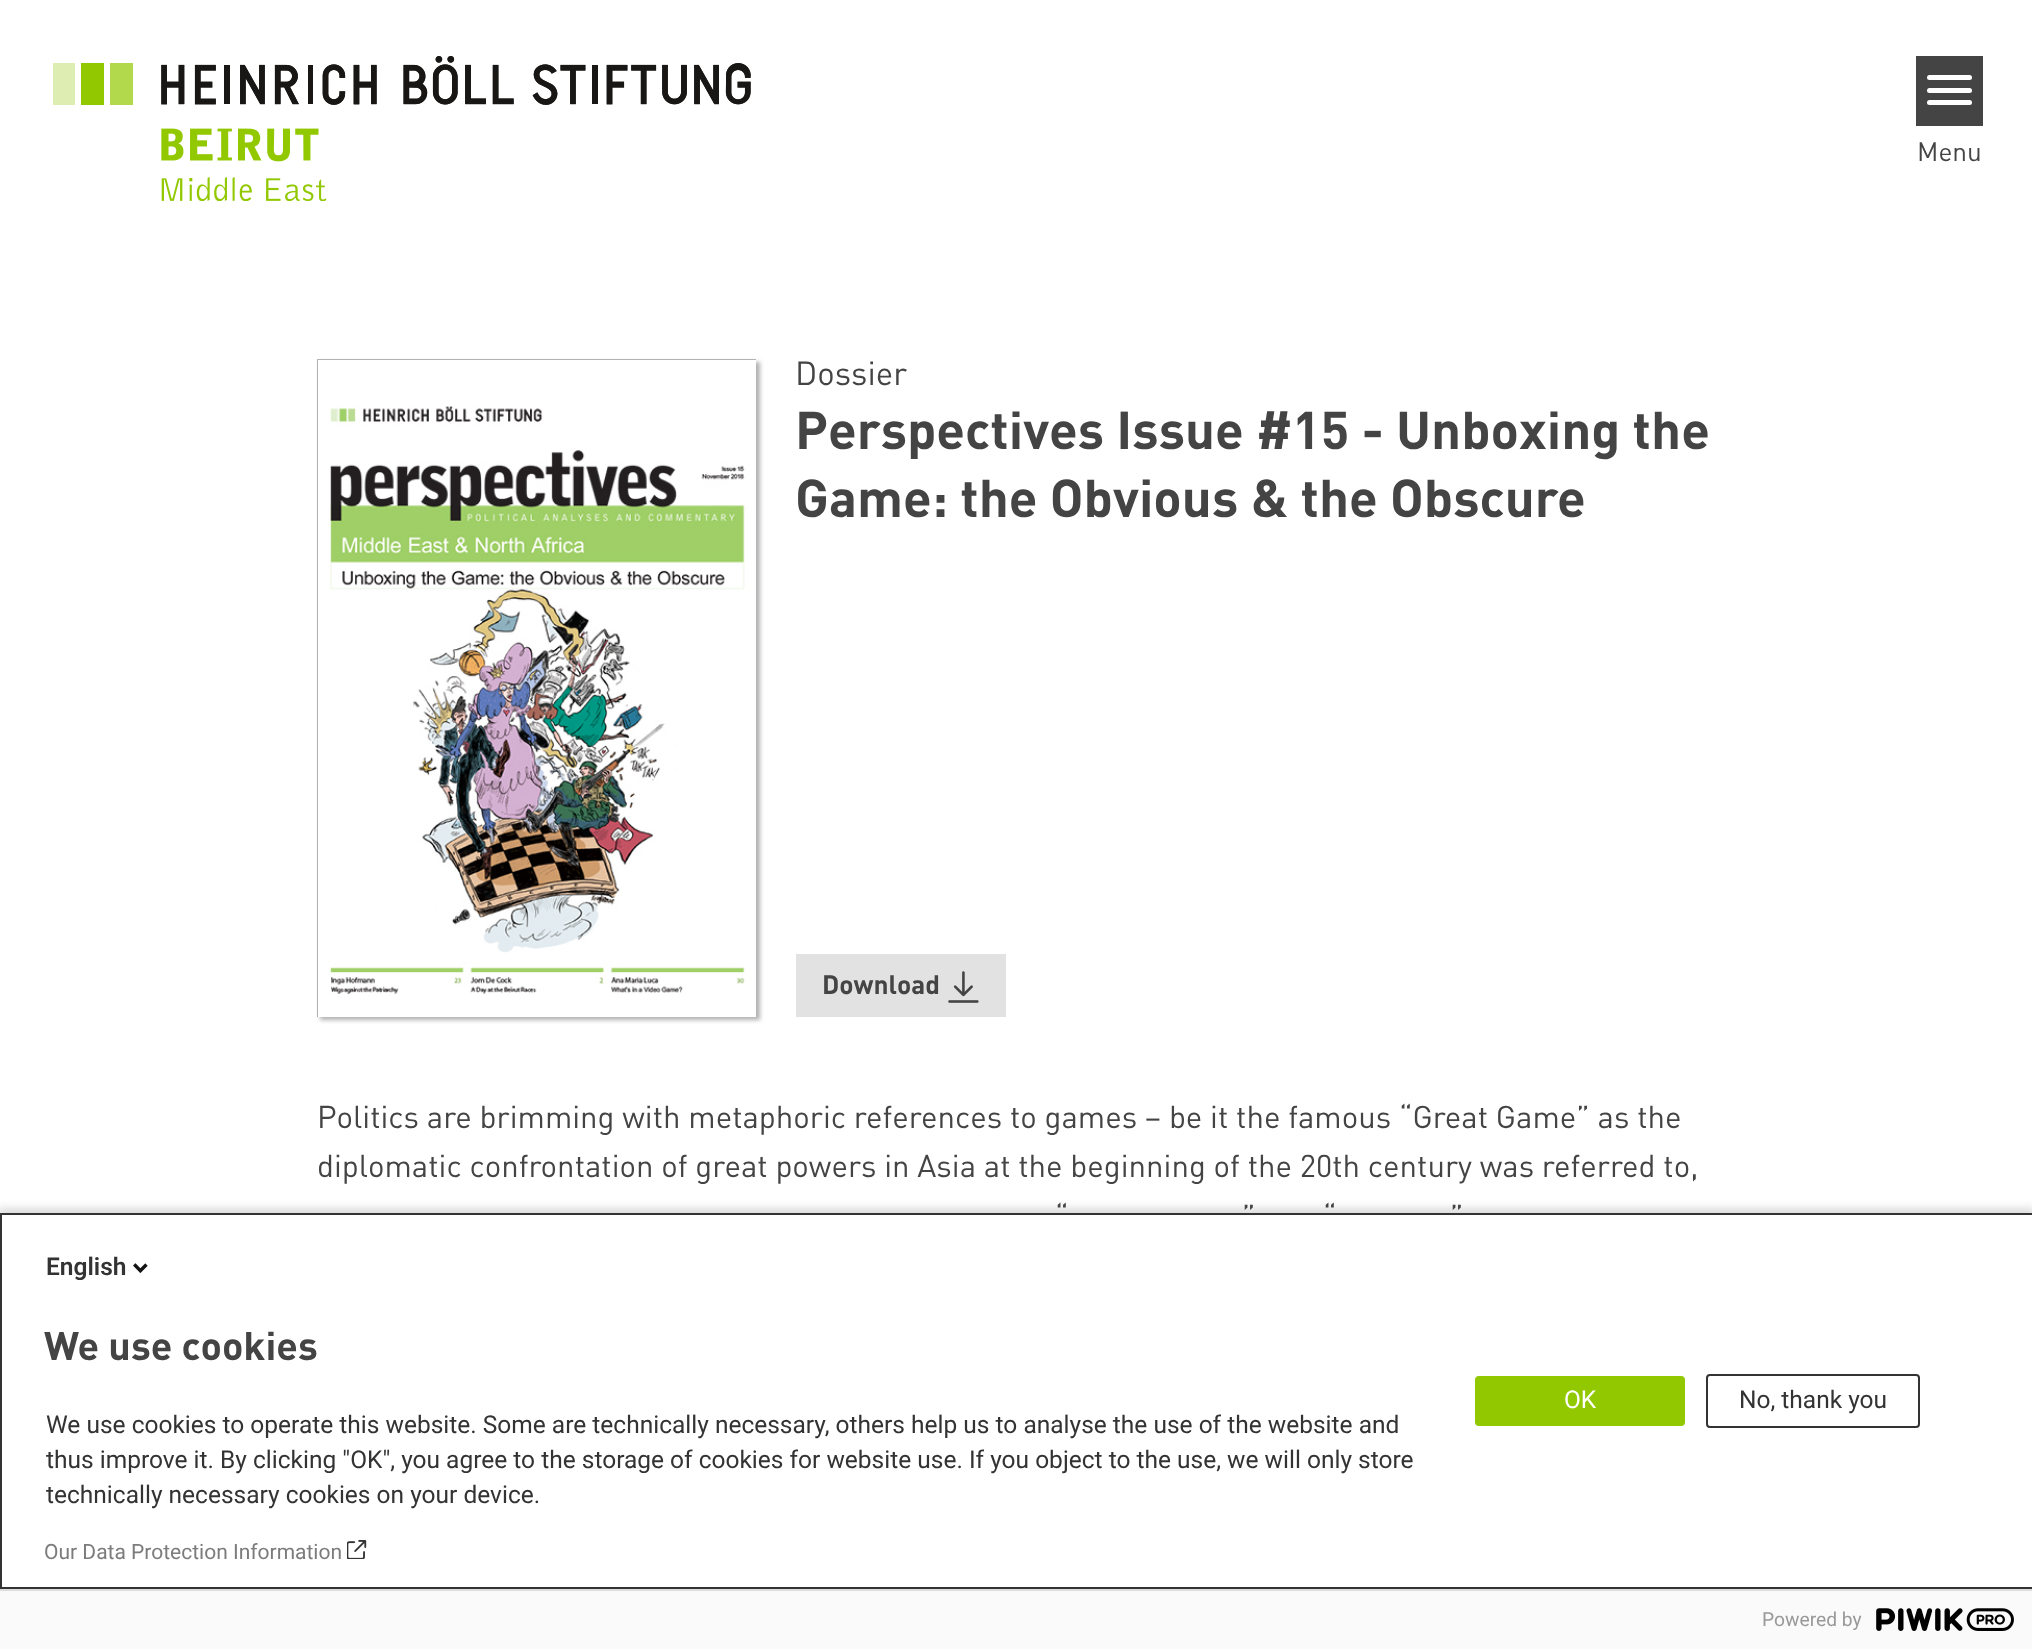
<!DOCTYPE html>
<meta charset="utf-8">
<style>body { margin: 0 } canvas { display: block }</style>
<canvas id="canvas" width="2032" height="1649"></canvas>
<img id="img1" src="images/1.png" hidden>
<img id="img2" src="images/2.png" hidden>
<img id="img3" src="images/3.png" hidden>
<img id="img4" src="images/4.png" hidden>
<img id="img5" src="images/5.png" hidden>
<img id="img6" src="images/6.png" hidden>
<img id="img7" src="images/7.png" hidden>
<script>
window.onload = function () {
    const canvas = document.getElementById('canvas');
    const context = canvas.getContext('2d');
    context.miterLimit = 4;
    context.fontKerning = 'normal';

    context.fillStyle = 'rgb(255, 255, 255)';
    context.fillRect(0, 0, 2032, 1649);
    context.drawImage(document.getElementById('img1'), 53, 56, 698, 106);
    context.drawImage(document.getElementById('img2'), 161, 177, 166, 24);
    context.fillStyle = 'rgb(68, 68, 68)';
    context.fillRect(1916, 56, 67, 70);
    context.fillStyle = 'rgb(255, 255, 255)';
    context.beginPath();
    context.roundRect(1927, 88, 45, 5, 2.5);
    context.fill();
    context.beginPath();
    context.roundRect(1927, 75, 45, 5, 2.5);
    context.fill();
    context.beginPath();
    context.roundRect(1927, 100, 45, 5, 2.5);
    context.fill();
    context.save();
    context.beginPath();
    context.moveTo(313, 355);
    context.lineTo(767, 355);
    context.lineTo(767, 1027);
    context.lineTo(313, 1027);
    context.closePath();
    context.moveTo(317, 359);
    context.lineTo(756, 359);
    context.lineTo(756, 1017);
    context.lineTo(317, 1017);
    context.closePath();
    context.clip('evenodd');
    context.fillStyle = 'rgba(100, 100, 100, 0.5)';
    context.filter = 'blur(2px)';
    context.beginPath();
    context.rect(320, 362, 440, 658);
    context.fill();
    context.filter = 'none';
    context.restore();
    context.fillStyle = 'rgb(178, 178, 178)';
    context.beginPath();
    context.moveTo(317, 359);
    context.lineTo(756, 359);
    context.lineTo(756, 360);
    context.lineTo(318, 360);
    context.closePath();
    context.fill();
    context.fillStyle = 'rgba(100, 100, 100, 0.5)';
    context.beginPath();
    context.moveTo(317, 1017);
    context.lineTo(317, 359);
    context.lineTo(318, 360);
    context.lineTo(318, 1017);
    context.closePath();
    context.fill();
    context.drawImage(document.getElementById('img3'), 319, 406, 437, 611);
    context.fillStyle = 'rgb(226, 226, 226)';
    context.fillRect(796, 954, 210, 63);
    context.drawImage(document.getElementById('img4'), 948, 971, 31, 32);
    context.fillStyle = 'rgba(0, 0, 0, 0.14)';
    context.filter = 'blur(4.5px)';
    context.beginPath();
    context.rect(-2, 1208, 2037, 441);
    context.fill();
    context.filter = 'none';
    context.fillStyle = 'rgb(255, 255, 255)';
    context.beginPath();
    context.rect(1, 1214, 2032, 374);
    context.fill();
    context.strokeStyle = 'rgb(51, 51, 51)';
    context.lineWidth = 2;
    context.stroke();
    context.drawImage(document.getElementById('img5'), 133, 1263, 15, 10);
    context.drawImage(document.getElementById('img6'), 347, 1540, 20, 19);
    context.fillStyle = 'rgb(145, 200, 0)';
    context.beginPath();
    context.roundRect(1475, 1376, 210, 50, 4);
    context.fill();
    context.beginPath();
    context.roundRect(1707, 1375, 212, 52, 3);
    context.stroke();
    context.fillStyle = 'rgb(250, 250, 250)';
    context.fillRect(0, 1591, 2032, 58);
    context.fillStyle = 'rgb(221, 221, 221)';
    context.fillRect(0, 1589, 2032, 2);
    context.drawImage(document.getElementById('img7'), 1876, 1608, 138, 23);
    context.font = '26.25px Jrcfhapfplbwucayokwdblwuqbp';
    context.fillStyle = 'rgb(68, 68, 68)';
    context.fillText('Menu', 1917, 161);
    context.font = '33px Jrcfhapfplbwucayokwdblwuqbp';
    context.fillText('Dossier', 795, 385);
    context.font = 'bold 52.5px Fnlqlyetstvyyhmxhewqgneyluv';
    context.fillText('Perspectives Issue #15 - Unboxing the', 795, 449);
    context.fillText('Game: the Obvious & the Obscure', 795, 517);
    context.font = 'bold 26.25px Fnlqlyetstvyyhmxhewqgneyluv';
    context.fillText('Download', 822, 994);
    context.font = '31.15px Jrcfhapfplbwucayokwdblwuqbp';
    context.fillText('Politics are brimming with metaphoric references to games – be it the famous “Great Game” as the', 317, 1128);
    context.fillText('diplomatic confrontation of great powers in Asia at the beginning of the 20th century was referred to,', 317, 1177);
    context.fillText('“', 1055, 1227);
    context.fillText('”', 1242, 1227);
    context.fillText('“', 1323, 1227);
    context.fillText('”', 1450, 1227);
    context.font = '600 24.5px Roboto';
    context.fillStyle = 'rgb(51, 51, 51)';
    context.fillText('English', 46, 1275);
    context.font = 'bold 39.5px Fnlqlyetstvyyhmxhewqgneyluv';
    context.fillStyle = 'rgb(68, 68, 68)';
    context.fillText('We use cookies', 44, 1360);
    context.font = '24.5px Roboto';
    context.fillStyle = 'rgb(51, 51, 51)';
    context.fillText('We use cookies to operate this website. Some are technically necessary, others help us to analyse the use of the website and', 46, 1433);
    context.fillText('thus improve it. By clicking "OK", you agree to the storage of cookies for website use. If you object to the use, we will only store', 46, 1468);
    context.fillText('technically necessary cookies on your device.', 46, 1503);
    context.font = '21px Roboto';
    context.fillStyle = 'rgb(124, 124, 124)';
    context.fillText('Our Data Protection Information', 44, 1559);
    context.font = '24.5px Roboto';
    context.fillStyle = 'rgb(255, 255, 255)';
    context.fillText('OK', 1564, 1408);
    context.fillStyle = 'rgb(51, 51, 51)';
    context.fillText('No, thank you', 1739, 1408);
    context.font = '19.25px Roboto';
    context.fillStyle = 'rgb(153, 153, 153)';
    context.fillText('Powered by', 1762, 1626);
};
</script>
